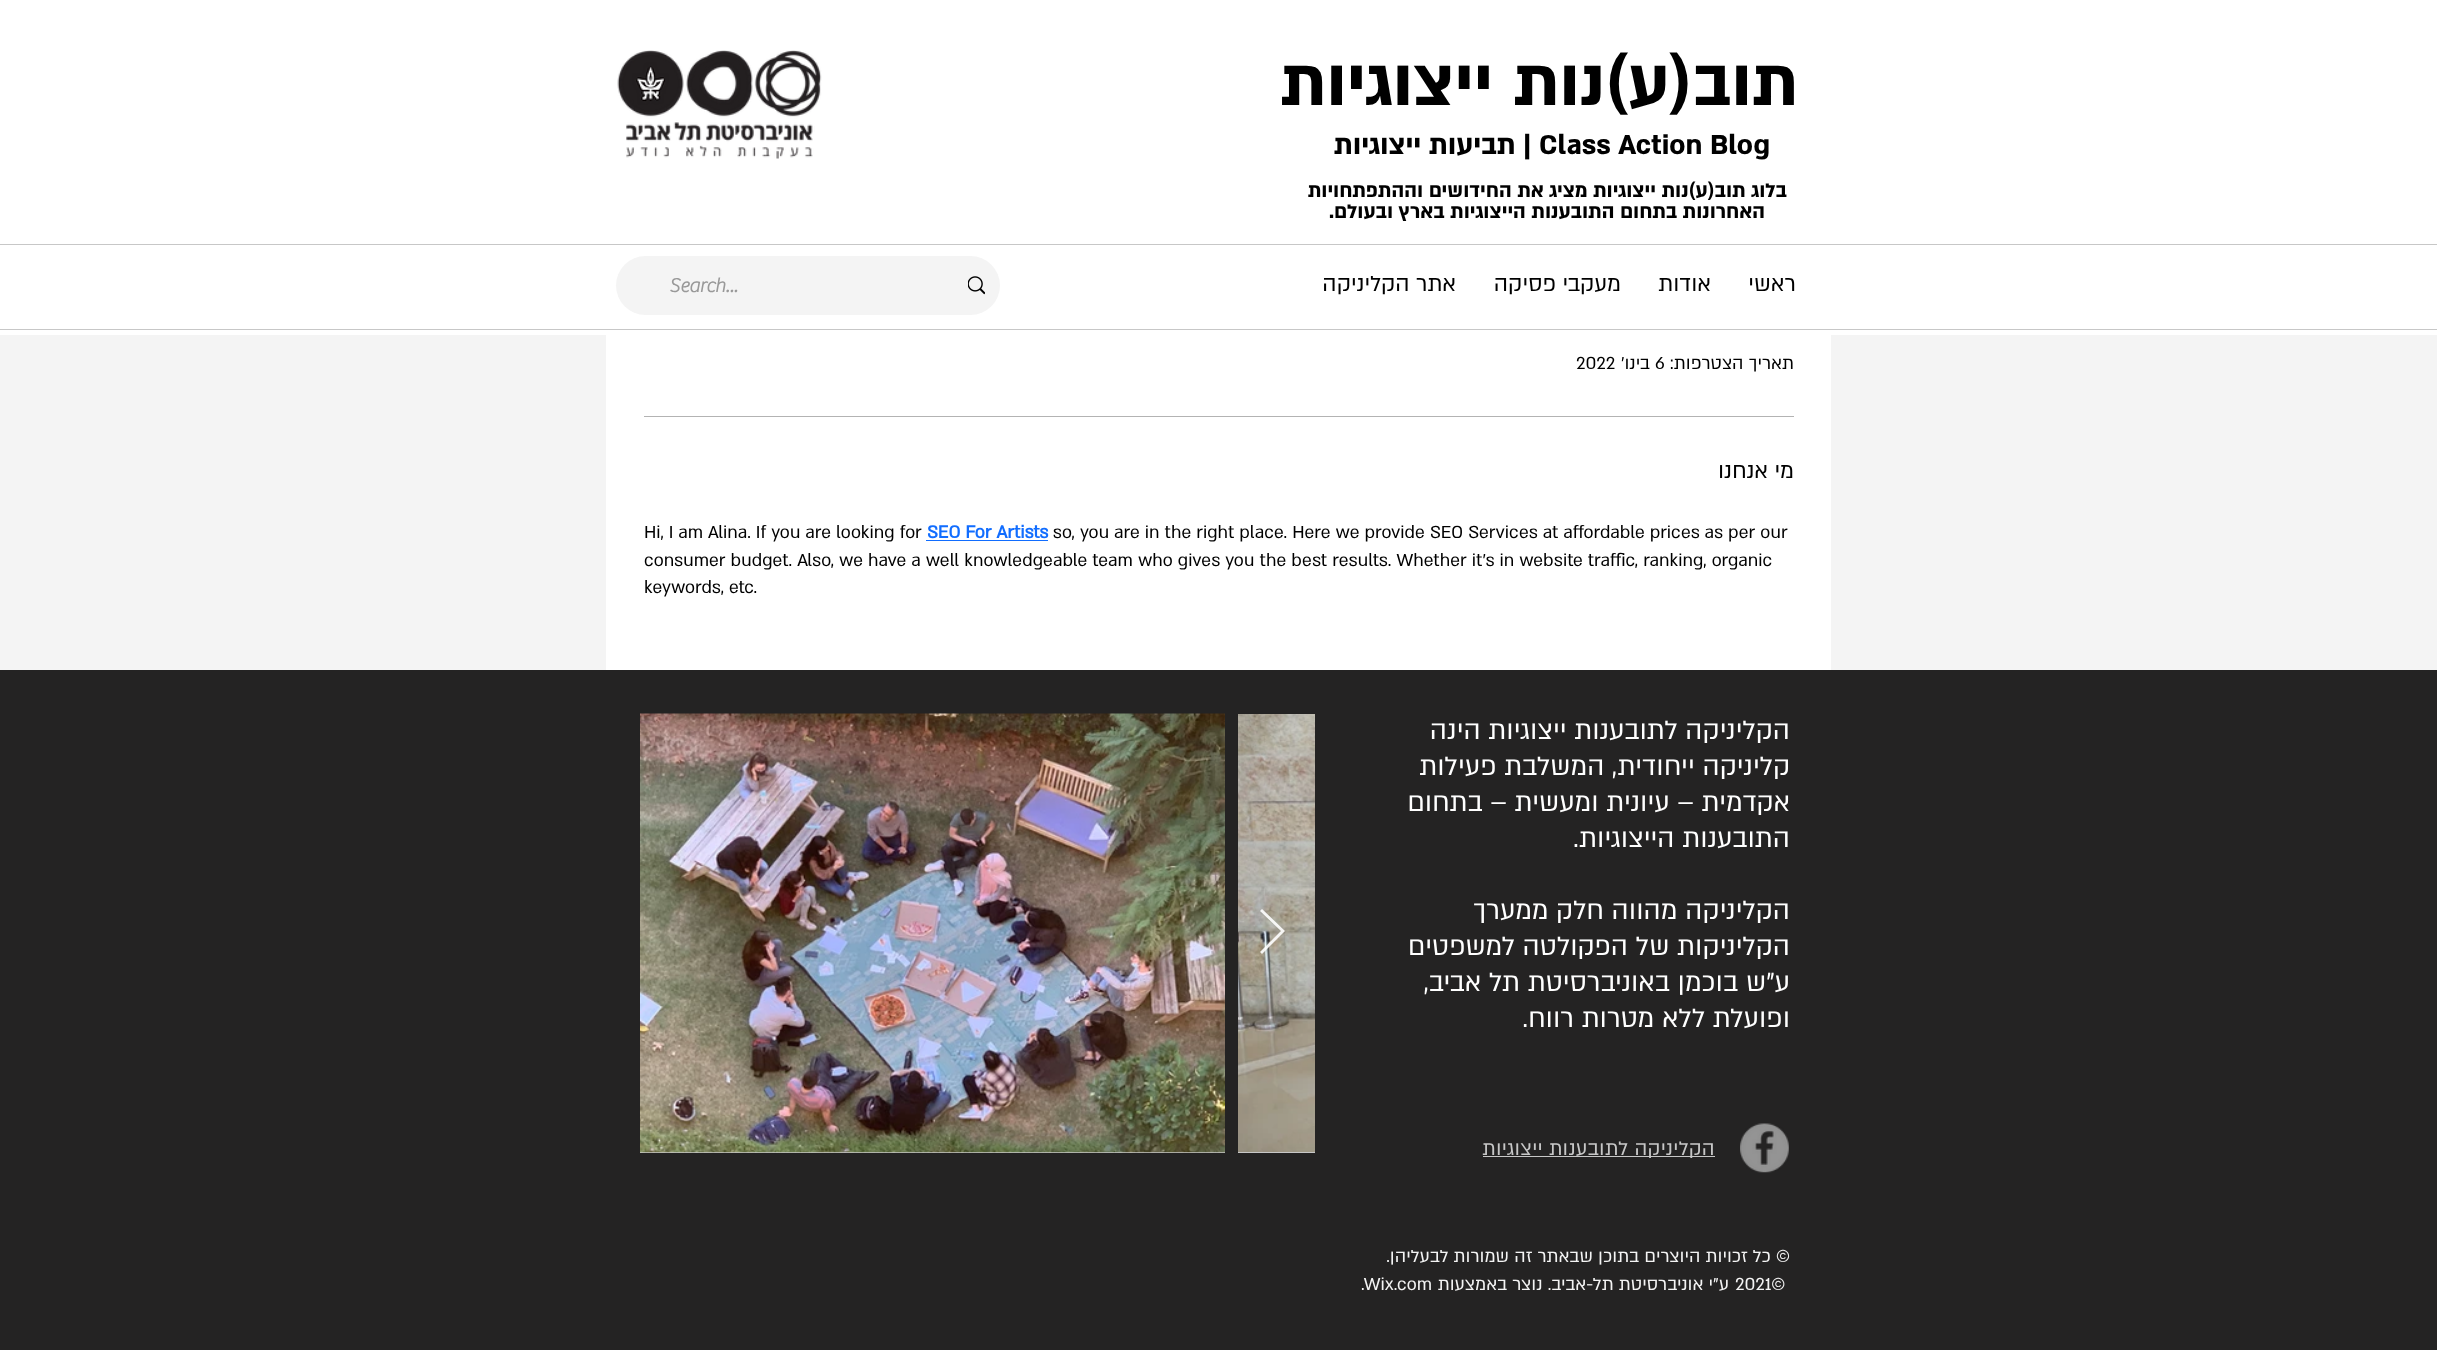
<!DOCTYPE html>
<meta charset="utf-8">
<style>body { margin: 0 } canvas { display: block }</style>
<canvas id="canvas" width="2437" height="1350"></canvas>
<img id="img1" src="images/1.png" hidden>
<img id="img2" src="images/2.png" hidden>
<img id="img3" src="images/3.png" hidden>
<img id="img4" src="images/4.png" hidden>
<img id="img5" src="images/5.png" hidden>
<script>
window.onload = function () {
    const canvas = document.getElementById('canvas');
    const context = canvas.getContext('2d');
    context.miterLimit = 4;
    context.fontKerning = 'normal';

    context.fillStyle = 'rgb(244, 244, 244)';
    context.fillRect(0, 0, 2437, 1350);
    context.fillStyle = 'rgb(255, 255, 255)';
    context.fillRect(0, 0, 2437, 335);
    context.drawImage(document.getElementById('img1'), 617, 50, 205, 109);
    context.fillStyle = 'rgb(199, 199, 199)';
    context.fillRect(0, 244, 2437, 1);
    context.fillStyle = 'rgb(244, 244, 244)';
    context.beginPath();
    context.roundRect(616, 256, 384, 59, 29.5);
    context.fill();
    context.drawImage(document.getElementById('img2'), 968, 276, 17, 19);
    context.fillStyle = 'rgb(199, 199, 199)';
    context.fillRect(0, 329, 2437, 1);
    context.fillStyle = 'rgb(255, 255, 255)';
    context.fillRect(606, 335, 1225, 335);
    context.fillStyle = 'rgb(179, 179, 179)';
    context.fillRect(644, 416, 1150, 1);
    context.fillStyle = 'rgb(17, 109, 255)';
    context.fillRect(926, 540, 122, 1);
    context.fillStyle = 'rgb(36, 35, 35)';
    context.fillRect(0, 670, 2437, 680);
    context.fillStyle = 'rgb(199, 199, 199)';
    context.fillRect(1238, 1152, 77, 1);
    context.drawImage(document.getElementById('img3'), 1238, 714, 77, 438);
    context.fillRect(640, 1152, 585, 1);
    context.drawImage(document.getElementById('img4'), 640, 713, 585, 440);
    context.fillStyle = 'rgba(255, 255, 255, 0.9)';
    context.beginPath();
    context.moveTo(1260, 911);
    context.lineTo(1262, 909);
    context.lineTo(1285, 931);
    context.lineTo(1262, 954);
    context.lineTo(1260, 952);
    context.lineTo(1281, 931);
    context.closePath();
    context.fill();
    context.drawImage(document.getElementById('img5'), 1740, 1123, 49, 50);
    context.fillStyle = 'rgb(199, 199, 199)';
    context.fillRect(1483, 1156, 232, 1);
    context.direction = 'rtl';
    context.font = 'bold 76px "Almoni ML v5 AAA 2"';
    context.fillStyle = 'rgb(0, 0, 0)';
    context.fillText('תוב(ע)נות', 1798, 105);
    context.fillText('ייצוגיות', 1493, 105);
    context.direction = 'ltr';
    context.font = 'bold 31.25px "Almoni ML v5 AAA 2"';
    context.fillText('Class Action Blog', 1539, 154);
    context.direction = 'rtl';
    context.fillText('| תביעות ייצוגיות', 1531, 154);
    context.font = 'bold 22.5px "Almoni ML v5 AAA 2"';
    context.fillText('בלוג תוב(ע)נות ייצוגיות מציג את החידושים וההתפתחויות', 1787, 197);
    context.fillText('האחרונות בתחום התובענות הייצוגיות בארץ ובעולם.', 1765, 218);
    context.font = '25px "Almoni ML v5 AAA"';
    context.fillText('ראשי', 1796, 291);
    context.fillText('אודות', 1711, 291);
    context.fillText('מעקבי פסיקה', 1621, 291);
    context.fillText('אתר הקליניקה', 1456, 291);
    context.direction = 'ltr';
    context.font = 'bold 20px "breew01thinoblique"';
    context.fillStyle = 'rgb(153, 153, 153)';
    context.fillText('Search...', 669, 292);
    context.direction = 'rtl';
    context.font = '20px "Almoni ML v5 AAA"';
    context.fillStyle = 'rgb(0, 0, 0)';
    context.fillText('תאריך הצטרפות:', 1794, 369);
    context.direction = 'ltr';
    context.fillText('6', 1655, 369);
    context.direction = 'rtl';
    context.fillText('בינו׳', 1650, 369);
    context.direction = 'ltr';
    context.fillText('2022', 1576, 369);
    context.direction = 'rtl';
    context.font = '25px "Almoni ML v5 AAA"';
    context.fillText('מי אנחנו', 1794, 478);
    context.direction = 'ltr';
    context.font = '20px "Almoni ML v5 AAA"';
    context.fillText('so, you are in the right place. Here we provide SEO Services at affordable prices as per our', 1053, 538);
    context.font = 'bold 20px "Almoni ML v5 AAA"';
    context.fillStyle = 'rgb(17, 109, 255)';
    context.fillText('SEO For Artists', 927, 538);
    context.font = '20px "Almoni ML v5 AAA"';
    context.fillStyle = 'rgb(0, 0, 0)';
    context.fillText('Hi, I am Alina. If you are looking for', 644, 538);
    context.fillText('consumer budget. Also, we have a well knowledgeable team who gives you the best results. Whether it’s in website traffic, ranking, organic', 644, 566);
    context.fillText('keywords, etc.', 644, 593);
    context.direction = 'rtl';
    context.font = '30px "Almoni ML v5 AAA"';
    context.fillStyle = 'rgb(255, 255, 255)';
    context.fillText('הקליניקה לתובענות ייצוגיות הינה', 1790, 739);
    context.fillText('קליניקה ייחודית, המשלבת פעילות', 1790, 775);
    context.fillText('אקדמית – עיונית ומעשית – בתחום', 1790, 811);
    context.fillText('התובענות הייצוגיות.', 1790, 847);
    context.fillText('הקליניקה מהווה חלק ממערך', 1790, 919);
    context.fillText('הקליניקות של הפקולטה למשפטים', 1790, 955);
    context.fillText('ע"ש בוכמן באוניברסיטת תל אביב,', 1790, 991);
    context.fillText('ופועלת ללא מטרות רווח.', 1790, 1027);
    context.letterSpacing = '0.25px';
    context.font = '22.5px "Almoni ML v5 AAA"';
    context.fillStyle = 'rgb(199, 199, 199)';
    context.fillText('הקליניקה לתובענות ייצוגיות', 1715, 1155);
    context.letterSpacing = '0px';
    context.font = '20px "Almoni ML v5 AAA"';
    context.fillStyle = 'rgb(244, 244, 244)';
    context.fillText('© כל זכויות היוצרים בתוכן שבאתר זה שמורות לבעליהן.', 1790, 1262);
    context.direction = 'ltr';
    context.fillText('2021©', 1735, 1290);
    context.direction = 'rtl';
    context.fillText('ע"י אוניברסיטת תל-אביב. נוצר באמצעות', 1729, 1290);
    context.direction = 'ltr';
    context.fillText('.Wix.com', 1361, 1290);
};
</script>
